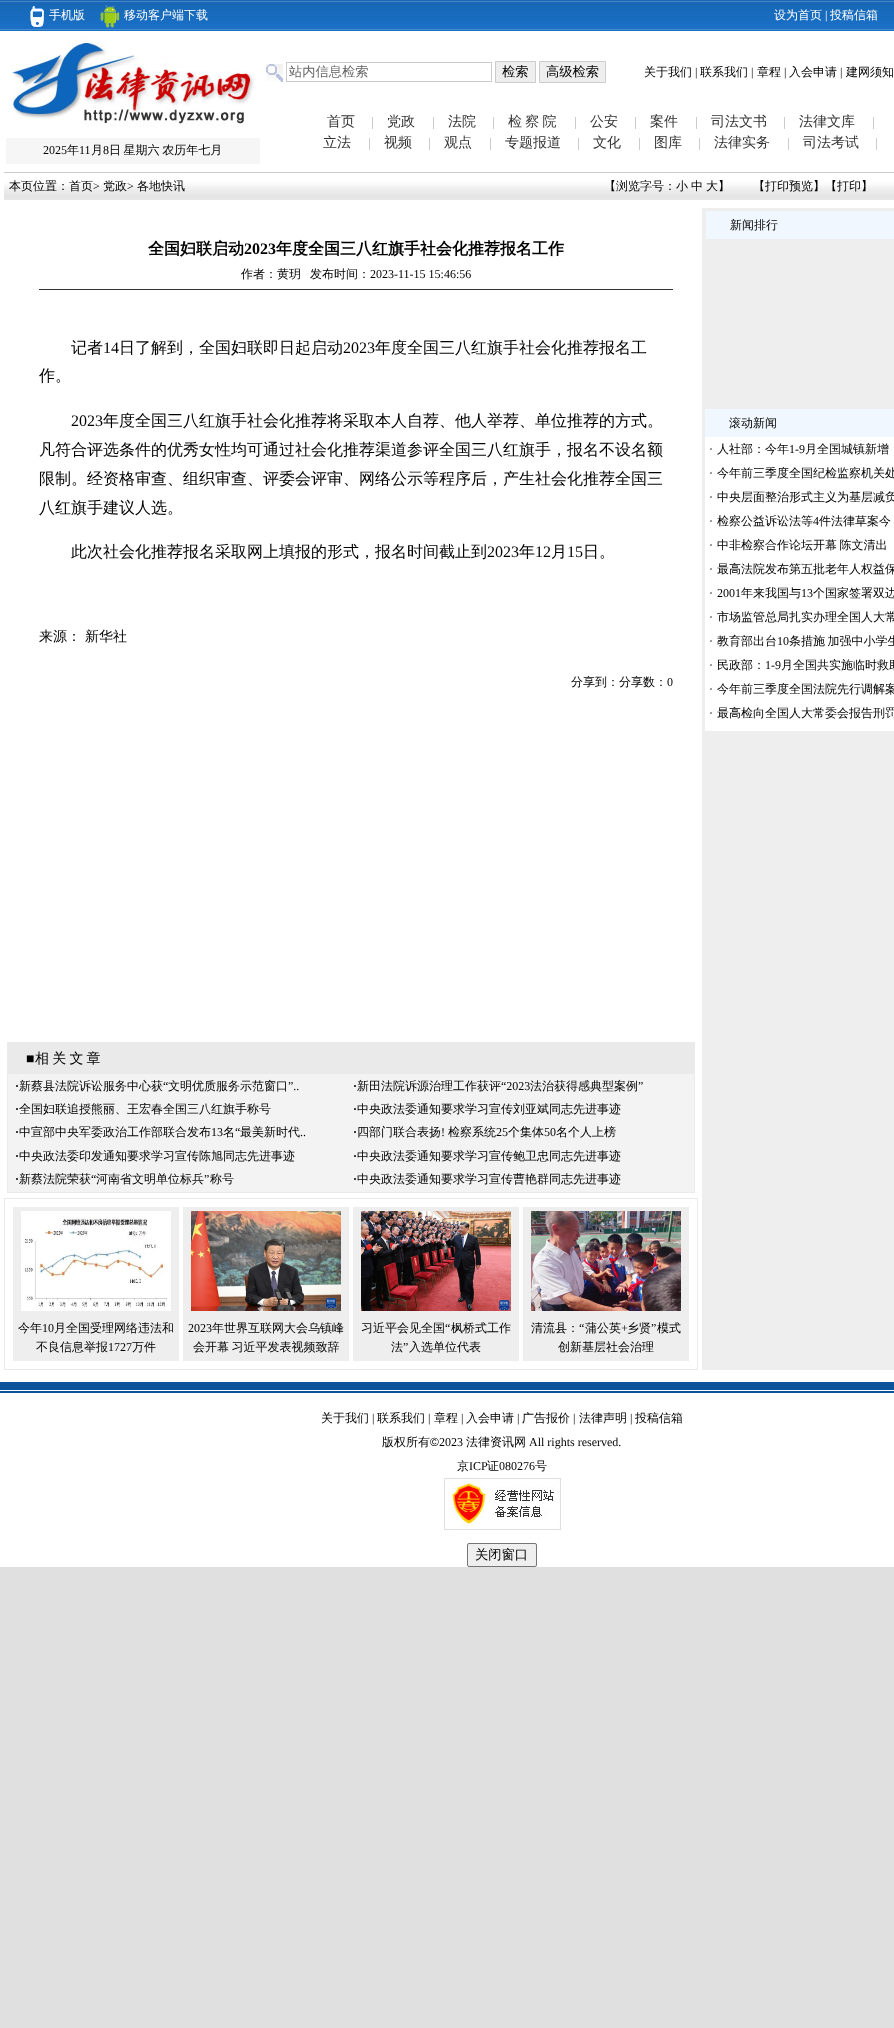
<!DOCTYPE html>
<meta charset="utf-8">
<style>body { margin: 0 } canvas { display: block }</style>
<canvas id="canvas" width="894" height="2028"></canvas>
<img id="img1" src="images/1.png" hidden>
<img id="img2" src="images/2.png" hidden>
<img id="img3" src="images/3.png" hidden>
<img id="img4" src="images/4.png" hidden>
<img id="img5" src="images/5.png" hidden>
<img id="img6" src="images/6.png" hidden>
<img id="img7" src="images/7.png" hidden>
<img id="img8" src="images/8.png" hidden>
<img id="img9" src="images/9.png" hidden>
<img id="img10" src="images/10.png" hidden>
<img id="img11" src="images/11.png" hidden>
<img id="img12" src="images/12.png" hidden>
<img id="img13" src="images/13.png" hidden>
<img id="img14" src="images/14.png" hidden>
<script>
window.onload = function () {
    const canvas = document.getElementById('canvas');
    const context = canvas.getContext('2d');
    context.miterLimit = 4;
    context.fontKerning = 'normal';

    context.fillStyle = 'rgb(224, 224, 224)';
    context.fillRect(0, 0, 894, 2028);
    context.fillStyle = 'rgb(255, 255, 255)';
    context.fillRect(0, 31, 894, 1536);
    context.drawImage(document.getElementById('img1'), 0, 0, 85, 31);
    context.drawImage(document.getElementById('img2'), 30, 6, 14, 21);
    context.drawImage(document.getElementById('img3'), 85, 0, 123, 31);
    context.drawImage(document.getElementById('img4'), 100, 5, 20, 23);
    context.drawImage(document.getElementById('img5'), 208, 0, 566, 31);
    context.drawImage(document.getElementById('img6'), 774, 0, 120, 31);
    context.drawImage(document.getElementById('img7'), 12, 39, 242, 88);
    context.fillStyle = 'rgb(246, 246, 246)';
    context.fillRect(6, 138, 254, 26);
    context.drawImage(document.getElementById('img8'), 266, 64, 17, 18);
    context.strokeStyle = 'rgb(204, 204, 204)';
    context.strokeRect(286.5, 62.5, 205, 19);
    context.fillStyle = 'rgb(238, 238, 238)';
    context.beginPath();
    context.rect(495.5, 61.5, 40, 21);
    context.fill();
    context.stroke();
    context.beginPath();
    context.rect(539.5, 61.5, 66, 21);
    context.fill();
    context.stroke();
    context.fillStyle = 'rgb(204, 204, 204)';
    context.fillRect(372, 117, 1, 12);
    context.fillRect(433, 117, 1, 12);
    context.fillRect(493, 117, 1, 12);
    context.fillRect(575, 117, 1, 12);
    context.fillRect(635, 117, 1, 12);
    context.fillRect(696, 117, 1, 12);
    context.fillRect(784, 117, 1, 12);
    context.fillRect(873, 117, 1, 12);
    context.fillRect(369, 138, 1, 12);
    context.fillRect(429, 138, 1, 12);
    context.fillRect(490, 138, 1, 12);
    context.fillRect(578, 138, 1, 12);
    context.fillRect(639, 138, 1, 12);
    context.fillRect(699, 138, 1, 12);
    context.fillRect(788, 138, 1, 12);
    context.fillRect(876, 138, 1, 12);
    context.drawImage(document.getElementById('img9'), 4, 172, 890, 28);
    context.fillStyle = 'rgb(51, 51, 51)';
    context.fillRect(39, 289, 634, 1);
    context.fillStyle = 'rgb(238, 238, 238)';
    context.fillRect(702, 208, 192, 1162);
    context.fillStyle = 'rgb(240, 247, 254)';
    context.fillRect(706, 211, 188, 28);
    context.fillRect(705, 409, 189, 28);
    context.fillStyle = 'rgb(255, 255, 255)';
    context.fillRect(705, 437, 189, 294);
    context.fillStyle = 'rgb(234, 234, 234)';
    context.fillRect(7, 1042, 688, 151);
    context.fillStyle = 'rgb(243, 243, 243)';
    context.fillRect(8, 1074, 686, 118);
    context.fillStyle = 'rgb(234, 234, 234)';
    context.fillRect(4, 1198, 694, 172);
    context.fillStyle = 'rgb(255, 255, 255)';
    context.fillRect(5, 1199, 692, 170);
    context.fillStyle = 'rgb(238, 238, 238)';
    context.fillRect(13, 1207, 166, 154);
    context.drawImage(document.getElementById('img10'), 21, 1211, 150, 100);
    context.fillRect(183, 1207, 166, 154);
    context.drawImage(document.getElementById('img11'), 191, 1211, 150, 100);
    context.fillRect(353, 1207, 166, 154);
    context.drawImage(document.getElementById('img12'), 361, 1211, 150, 100);
    context.fillRect(523, 1207, 166, 154);
    context.drawImage(document.getElementById('img13'), 531, 1211, 150, 100);
    context.fillStyle = 'rgb(11, 83, 155)';
    context.fillRect(0, 1382, 894, 8);
    context.fillRect(0, 1391, 894, 2);
    context.drawImage(document.getElementById('img14'), 444, 1478, 117, 52);
    context.fillStyle = 'rgb(239, 239, 239)';
    context.beginPath();
    context.roundRect(467.5, 1543.5, 69, 23, 1.5);
    context.fill();
    context.strokeStyle = 'rgb(118, 118, 118)';
    context.stroke();
    context.font = '500 12px WenQuanYi Zen Hei';
    context.fillStyle = 'rgb(255, 255, 255)';
    context.fillText('手机版', 49, 19);
    context.fillText('移动客户端下载', 124, 19);
    context.fillText('设为首页', 774, 19);
    context.font = '12px Liberation Serif';
    context.fillText('|', 825, 19);
    context.font = '500 12px WenQuanYi Zen Hei';
    context.fillText('投稿信箱', 830, 19);
    context.font = '12px Liberation Serif';
    context.fillStyle = 'rgb(0, 0, 0)';
    context.fillText('2025', 43, 154);
    context.font = '500 12px WenQuanYi Zen Hei';
    context.fillText('年', 67, 154);
    context.font = '12px Liberation Serif';
    context.fillText('11', 79, 154);
    context.font = '500 12px WenQuanYi Zen Hei';
    context.fillText('月', 91, 154);
    context.font = '12px Liberation Serif';
    context.fillText('8', 103, 154);
    context.wordSpacing = '-1px';
    context.font = '500 12px WenQuanYi Zen Hei';
    context.fillText('日 星期六 农历年七月', 109, 154);
    context.wordSpacing = '0px';
    context.font = '500 13.25px WenQuanYi Zen Hei';
    context.fillStyle = 'rgb(102, 102, 102)';
    context.fillText('站内信息检索', 289, 76);
    context.fillStyle = 'rgb(0, 0, 0)';
    context.fillText('检索', 502, 76);
    context.fillText('高级检索', 546, 76);
    context.font = '500 12px WenQuanYi Zen Hei';
    context.fillText('关于我们', 644, 76);
    context.font = '12px Liberation Serif';
    context.fillText('|', 695, 76);
    context.font = '500 12px WenQuanYi Zen Hei';
    context.fillText('联系我们', 700, 76);
    context.font = '12px Liberation Serif';
    context.fillText('|', 751, 76);
    context.font = '500 12px WenQuanYi Zen Hei';
    context.fillText('章程', 757, 76);
    context.font = '12px Liberation Serif';
    context.fillText('|', 784, 76);
    context.font = '500 12px WenQuanYi Zen Hei';
    context.fillText('入会申请', 789, 76);
    context.font = '12px Liberation Serif';
    context.fillText('|', 840, 76);
    context.font = '500 12px WenQuanYi Zen Hei';
    context.fillText('建网须知', 846, 76);
    context.font = '500 14px WenQuanYi Zen Hei';
    context.fillStyle = 'rgb(51, 51, 51)';
    context.fillText('首页', 327, 126);
    context.fillText('党政', 387, 126);
    context.fillText('法院', 448, 126);
    context.wordSpacing = '-1px';
    context.fillText('检 察 院', 508, 126);
    context.wordSpacing = '0px';
    context.fillText('公安', 590, 126);
    context.fillText('案件', 650, 126);
    context.fillText('司法文书', 711, 126);
    context.fillText('法律文库', 799, 126);
    context.fillText('立法', 323, 147);
    context.fillText('视频', 384, 147);
    context.fillText('观点', 444, 147);
    context.fillText('专题报道', 505, 147);
    context.fillText('文化', 593, 147);
    context.fillText('图库', 654, 147);
    context.fillText('法律实务', 714, 147);
    context.fillText('司法考试', 803, 147);
    context.font = '500 12px WenQuanYi Zen Hei';
    context.fillStyle = 'rgb(0, 0, 0)';
    context.fillText('本页位置：首页', 9, 190);
    context.font = '12px Liberation Serif';
    context.fillText('>', 93, 190);
    context.font = '500 12px WenQuanYi Zen Hei';
    context.fillText('党政', 103, 190);
    context.font = '12px Liberation Serif';
    context.fillText('>', 127, 190);
    context.font = '500 12px WenQuanYi Zen Hei';
    context.fillText('各地快讯', 137, 190);
    context.fillText('【浏览字号：小', 604, 190);
    context.fillText('中', 691, 190);
    context.fillText('大】', 706, 190);
    context.fillText('【打印预览】【打印】', 753, 190);
    context.font = 'bold 16px WenQuanYi Zen Hei';
    context.fillText('全国妇联启动', 148, 254);
    context.font = 'bold 16px Liberation Serif';
    context.fillText('2023', 244, 254);
    context.font = 'bold 16px WenQuanYi Zen Hei';
    context.fillText('年度全国三八红旗手社会化推荐报名工作', 276, 254);
    context.font = '500 12px WenQuanYi Zen Hei';
    context.fillText('作者：黄玥', 241, 278);
    context.fillText('发布时间：', 310, 278);
    context.font = '12px Liberation Serif';
    context.fillText('2023-11-15 15:46:56', 370, 278);
    context.font = '500 16px WenQuanYi Zen Hei';
    context.fillText('记者', 71, 353);
    context.font = '16px Liberation Serif';
    context.fillText('14', 103, 353);
    context.font = '500 16px WenQuanYi Zen Hei';
    context.fillText('日了解到，全国妇联即日起启动', 119, 353);
    context.font = '16px Liberation Serif';
    context.fillText('2023', 343, 353);
    context.font = '500 16px WenQuanYi Zen Hei';
    context.fillText('年度全国三八红旗手社会化推荐报名工', 375, 353);
    context.fillText('作。', 39, 381);
    context.font = '16px Liberation Serif';
    context.fillText('2023', 71, 426);
    context.font = '500 16px WenQuanYi Zen Hei';
    context.fillText('年度全国三八红旗手社会化推荐将采取本人自荐、他人举荐、单位推荐的方式。', 103, 426);
    context.fillText('凡符合评选条件的优秀女性均可通过社会化推荐渠道参评全国三八红旗手，报名不设名额', 39, 455);
    context.fillText('限制。经资格审查、组织审查、评委会评审、网络公示等程序后，产生社会化推荐全国三', 39, 484);
    context.fillText('八红旗手建议人选。', 39, 513);
    context.fillText('此次社会化推荐报名采取网上填报的形式，报名时间截止到', 71, 557);
    context.font = '16px Liberation Serif';
    context.fillText('2023', 487, 557);
    context.font = '500 16px WenQuanYi Zen Hei';
    context.fillText('年', 519, 557);
    context.font = '16px Liberation Serif';
    context.fillText('12', 535, 557);
    context.font = '500 16px WenQuanYi Zen Hei';
    context.fillText('月', 551, 557);
    context.font = '16px Liberation Serif';
    context.fillText('15', 567, 557);
    context.font = '500 16px WenQuanYi Zen Hei';
    context.fillText('日。', 583, 557);
    context.font = '500 14px WenQuanYi Zen Hei';
    context.fillText('来源：', 39, 641);
    context.fillText('新华社', 85, 641);
    context.font = '500 12px WenQuanYi Zen Hei';
    context.fillText('分享到：分享数：', 571, 686);
    context.font = '12px Liberation Serif';
    context.fillText('0', 667, 686);
    context.font = '500 12px WenQuanYi Zen Hei';
    context.fillText('新闻排行', 730, 229);
    context.fillText('滚动新闻', 729, 427);
    context.font = '12px Liberation Serif';
    context.fillText('·', 709, 453);
    context.font = '500 12px WenQuanYi Zen Hei';
    context.fillText('人社部：今年', 717, 453);
    context.font = '12px Liberation Serif';
    context.fillText('1-9', 789, 453);
    context.font = '500 12px WenQuanYi Zen Hei';
    context.fillText('月全国城镇新增', 805, 453);
    context.font = '12px Liberation Serif';
    context.fillText('·', 709, 477);
    context.font = '500 12px WenQuanYi Zen Hei';
    context.fillText('今年前三季度全国纪检监察机关处', 717, 477);
    context.font = '12px Liberation Serif';
    context.fillText('·', 709, 501);
    context.font = '500 12px WenQuanYi Zen Hei';
    context.fillText('中央层面整治形式主义为基层减负', 717, 501);
    context.font = '12px Liberation Serif';
    context.fillText('·', 709, 525);
    context.font = '500 12px WenQuanYi Zen Hei';
    context.fillText('检察公益诉讼法等', 717, 525);
    context.font = '12px Liberation Serif';
    context.fillText('4', 813, 525);
    context.font = '500 12px WenQuanYi Zen Hei';
    context.fillText('件法律草案今', 819, 525);
    context.font = '12px Liberation Serif';
    context.fillText('·', 709, 549);
    context.wordSpacing = '-1px';
    context.font = '500 12px WenQuanYi Zen Hei';
    context.fillText('中非检察合作论坛开幕 陈文清出', 717, 549);
    context.wordSpacing = '0px';
    context.font = '12px Liberation Serif';
    context.fillText('·', 709, 573);
    context.font = '500 12px WenQuanYi Zen Hei';
    context.fillText('最高法院发布第五批老年人权益保', 717, 573);
    context.font = '12px Liberation Serif';
    context.fillText('·', 709, 597);
    context.fillText('2001', 717, 597);
    context.font = '500 12px WenQuanYi Zen Hei';
    context.fillText('年来我国与', 741, 597);
    context.font = '12px Liberation Serif';
    context.fillText('13', 801, 597);
    context.font = '500 12px WenQuanYi Zen Hei';
    context.fillText('个国家签署双边', 813, 597);
    context.font = '12px Liberation Serif';
    context.fillText('·', 709, 621);
    context.font = '500 12px WenQuanYi Zen Hei';
    context.fillText('市场监管总局扎实办理全国人大常', 717, 621);
    context.font = '12px Liberation Serif';
    context.fillText('·', 709, 645);
    context.font = '500 12px WenQuanYi Zen Hei';
    context.fillText('教育部出台', 717, 645);
    context.font = '12px Liberation Serif';
    context.fillText('10', 777, 645);
    context.wordSpacing = '-1px';
    context.font = '500 12px WenQuanYi Zen Hei';
    context.fillText('条措施 加强中小学生', 789, 645);
    context.wordSpacing = '0px';
    context.font = '12px Liberation Serif';
    context.fillText('·', 709, 669);
    context.font = '500 12px WenQuanYi Zen Hei';
    context.fillText('民政部：', 717, 669);
    context.font = '12px Liberation Serif';
    context.fillText('1-9', 765, 669);
    context.font = '500 12px WenQuanYi Zen Hei';
    context.fillText('月全国共实施临时救助', 781, 669);
    context.font = '12px Liberation Serif';
    context.fillText('·', 709, 693);
    context.font = '500 12px WenQuanYi Zen Hei';
    context.fillText('今年前三季度全国法院先行调解案', 717, 693);
    context.font = '12px Liberation Serif';
    context.fillText('·', 709, 717);
    context.font = '500 12px WenQuanYi Zen Hei';
    context.fillText('最高检向全国人大常委会报告刑罚', 717, 717);
    context.font = '14px Liberation Serif';
    context.fillText('■', 26, 1063);
    context.wordSpacing = '-1px';
    context.font = '500 14px WenQuanYi Zen Hei';
    context.fillText('相 关 文 章', 35, 1063);
    context.wordSpacing = '0px';
    context.font = 'bold 12px Liberation Serif';
    context.fillText('·', 15, 1090);
    context.font = '500 12px WenQuanYi Zen Hei';
    context.fillText('新蔡县法院诉讼服务中心获', 19, 1090);
    context.font = '12px Liberation Serif';
    context.fillText('“', 163, 1090);
    context.font = '500 12px WenQuanYi Zen Hei';
    context.fillText('文明优质服务示范窗口', 168, 1090);
    context.font = '12px Liberation Serif';
    context.fillText('”..', 288, 1090);
    context.font = 'bold 12px Liberation Serif';
    context.fillText('·', 353, 1090);
    context.font = '500 12px WenQuanYi Zen Hei';
    context.fillText('新田法院诉源治理工作获评', 357, 1090);
    context.font = '12px Liberation Serif';
    context.fillText('“2023', 501, 1090);
    context.font = '500 12px WenQuanYi Zen Hei';
    context.fillText('法治获得感典型案例', 530, 1090);
    context.font = '12px Liberation Serif';
    context.fillText('”', 638, 1090);
    context.font = 'bold 12px Liberation Serif';
    context.fillText('·', 15, 1113);
    context.font = '500 12px WenQuanYi Zen Hei';
    context.fillText('全国妇联追授熊丽、王宏春全国三八红旗手称号', 19, 1113);
    context.font = 'bold 12px Liberation Serif';
    context.fillText('·', 353, 1113);
    context.font = '500 12px WenQuanYi Zen Hei';
    context.fillText('中央政法委通知要求学习宣传刘亚斌同志先进事迹', 357, 1113);
    context.font = 'bold 12px Liberation Serif';
    context.fillText('·', 15, 1136);
    context.font = '500 12px WenQuanYi Zen Hei';
    context.fillText('中宣部中央军委政治工作部联合发布', 19, 1136);
    context.font = '12px Liberation Serif';
    context.fillText('13', 211, 1136);
    context.font = '500 12px WenQuanYi Zen Hei';
    context.fillText('名', 223, 1136);
    context.font = '12px Liberation Serif';
    context.fillText('“', 235, 1136);
    context.font = '500 12px WenQuanYi Zen Hei';
    context.fillText('最美新时代', 240, 1136);
    context.font = '12px Liberation Serif';
    context.fillText('..', 300, 1136);
    context.font = 'bold 12px Liberation Serif';
    context.fillText('·', 353, 1136);
    context.font = '500 12px WenQuanYi Zen Hei';
    context.fillText('四部门联合表扬', 357, 1136);
    context.font = '12px Liberation Serif';
    context.fillText('!', 441, 1136);
    context.font = '500 12px WenQuanYi Zen Hei';
    context.fillText('检察系统', 448, 1136);
    context.font = '12px Liberation Serif';
    context.fillText('25', 496, 1136);
    context.font = '500 12px WenQuanYi Zen Hei';
    context.fillText('个集体', 508, 1136);
    context.font = '12px Liberation Serif';
    context.fillText('50', 544, 1136);
    context.font = '500 12px WenQuanYi Zen Hei';
    context.fillText('名个人上榜', 556, 1136);
    context.font = 'bold 12px Liberation Serif';
    context.fillText('·', 15, 1160);
    context.font = '500 12px WenQuanYi Zen Hei';
    context.fillText('中央政法委印发通知要求学习宣传陈旭同志先进事迹', 19, 1160);
    context.font = 'bold 12px Liberation Serif';
    context.fillText('·', 353, 1160);
    context.font = '500 12px WenQuanYi Zen Hei';
    context.fillText('中央政法委通知要求学习宣传鲍卫忠同志先进事迹', 357, 1160);
    context.font = 'bold 12px Liberation Serif';
    context.fillText('·', 15, 1183);
    context.font = '500 12px WenQuanYi Zen Hei';
    context.fillText('新蔡法院荣获', 19, 1183);
    context.font = '12px Liberation Serif';
    context.fillText('“', 91, 1183);
    context.font = '500 12px WenQuanYi Zen Hei';
    context.fillText('河南省文明单位标兵', 96, 1183);
    context.font = '12px Liberation Serif';
    context.fillText('”', 204, 1183);
    context.font = '500 12px WenQuanYi Zen Hei';
    context.fillText('称号', 210, 1183);
    context.font = 'bold 12px Liberation Serif';
    context.fillText('·', 353, 1183);
    context.font = '500 12px WenQuanYi Zen Hei';
    context.fillText('中央政法委通知要求学习宣传曹艳群同志先进事迹', 357, 1183);
    context.fillText('今年', 18, 1332);
    context.font = '12px Liberation Serif';
    context.fillText('10', 42, 1332);
    context.font = '500 12px WenQuanYi Zen Hei';
    context.fillText('月全国受理网络违法和', 54, 1332);
    context.fillText('不良信息举报', 36, 1351);
    context.font = '12px Liberation Serif';
    context.fillText('1727', 108, 1351);
    context.font = '500 12px WenQuanYi Zen Hei';
    context.fillText('万件', 132, 1351);
    context.font = '12px Liberation Serif';
    context.fillText('2023', 188, 1332);
    context.font = '500 12px WenQuanYi Zen Hei';
    context.fillText('年世界互联网大会乌镇峰', 212, 1332);
    context.wordSpacing = '-1px';
    context.fillText('会开幕 习近平发表视频致辞', 193, 1351);
    context.wordSpacing = '0px';
    context.fillText('习近平会见全国', 361, 1332);
    context.font = '12px Liberation Serif';
    context.fillText('“', 445, 1332);
    context.font = '500 12px WenQuanYi Zen Hei';
    context.fillText('枫桥式工作', 451, 1332);
    context.fillText('法', 391, 1351);
    context.font = '12px Liberation Serif';
    context.fillText('”', 403, 1351);
    context.font = '500 12px WenQuanYi Zen Hei';
    context.fillText('入选单位代表', 409, 1351);
    context.fillText('清流县：', 531, 1332);
    context.font = '12px Liberation Serif';
    context.fillText('“', 579, 1332);
    context.font = '500 12px WenQuanYi Zen Hei';
    context.fillText('蒲公英', 585, 1332);
    context.font = '12px Liberation Serif';
    context.fillText('+', 621, 1332);
    context.font = '500 12px WenQuanYi Zen Hei';
    context.fillText('乡贤', 627, 1332);
    context.font = '12px Liberation Serif';
    context.fillText('”', 651, 1332);
    context.font = '500 12px WenQuanYi Zen Hei';
    context.fillText('模式', 657, 1332);
    context.fillText('创新基层社会治理', 558, 1351);
    context.fillText('关于我们', 321, 1422);
    context.font = '12px Liberation Serif';
    context.fillText('|', 372, 1422);
    context.font = '500 12px WenQuanYi Zen Hei';
    context.fillText('联系我们', 377, 1422);
    context.font = '12px Liberation Serif';
    context.fillText('|', 428, 1422);
    context.font = '500 12px WenQuanYi Zen Hei';
    context.fillText('章程', 434, 1422);
    context.font = '12px Liberation Serif';
    context.fillText('|', 461, 1422);
    context.font = '500 12px WenQuanYi Zen Hei';
    context.fillText('入会申请', 466, 1422);
    context.font = '12px Liberation Serif';
    context.fillText('|', 517, 1422);
    context.font = '500 12px WenQuanYi Zen Hei';
    context.fillText('广告报价', 522, 1422);
    context.font = '12px Liberation Serif';
    context.fillText('|', 573, 1422);
    context.font = '500 12px WenQuanYi Zen Hei';
    context.fillText('法律声明', 579, 1422);
    context.font = '12px Liberation Serif';
    context.fillText('|', 630, 1422);
    context.font = '500 12px WenQuanYi Zen Hei';
    context.fillText('投稿信箱', 635, 1422);
    context.fillText('版权所有', 382, 1446);
    context.font = '12px Liberation Sans';
    context.fillText('©', 430, 1446);
    context.font = '12px Liberation Serif';
    context.fillText('2023', 439, 1446);
    context.font = '500 12px WenQuanYi Zen Hei';
    context.fillText('法律资讯网', 466, 1446);
    context.font = '12px Liberation Serif';
    context.fillText('All rights reserved.', 529, 1446);
    context.font = '500 12px WenQuanYi Zen Hei';
    context.fillText('京', 457, 1470);
    context.font = '12px Liberation Serif';
    context.fillText('ICP', 469, 1470);
    context.font = '500 12px WenQuanYi Zen Hei';
    context.fillText('证', 487, 1470);
    context.font = '12px Liberation Serif';
    context.fillText('080276', 499, 1470);
    context.font = '500 12px WenQuanYi Zen Hei';
    context.fillText('号', 535, 1470);
    context.font = '500 13.25px WenQuanYi Zen Hei';
    context.fillText('关闭窗口', 475, 1559);
};
</script>
